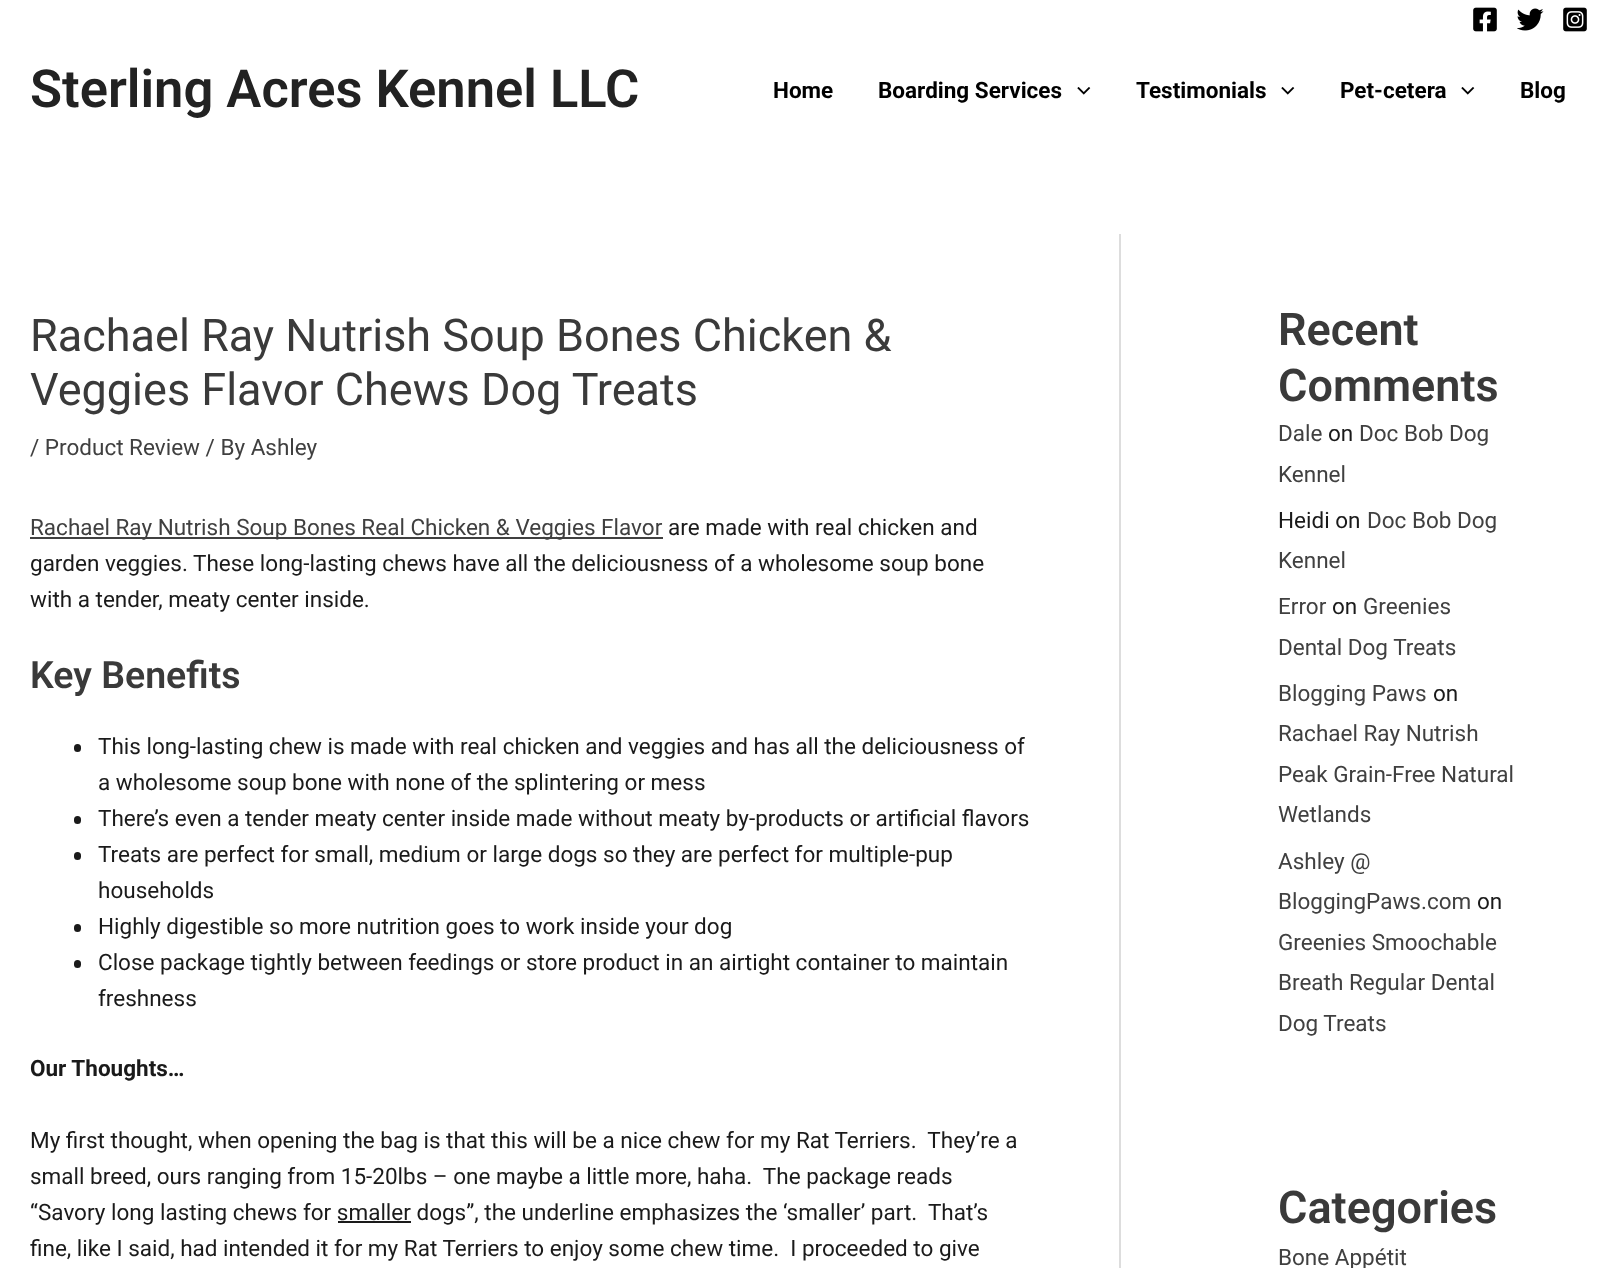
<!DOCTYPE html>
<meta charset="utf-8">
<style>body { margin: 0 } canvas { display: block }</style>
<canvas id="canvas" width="1618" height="1268"></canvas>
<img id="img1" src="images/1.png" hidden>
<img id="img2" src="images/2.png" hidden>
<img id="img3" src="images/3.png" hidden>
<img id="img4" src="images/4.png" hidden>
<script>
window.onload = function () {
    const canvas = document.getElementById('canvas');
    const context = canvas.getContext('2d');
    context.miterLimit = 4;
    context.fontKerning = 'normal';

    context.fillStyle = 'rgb(255, 255, 255)';
    context.fillRect(0, 0, 1618, 1268);
    context.drawImage(document.getElementById('img1'), 1473, 7, 24, 25);
    context.drawImage(document.getElementById('img2'), 1517, 8, 27, 23);
    context.drawImage(document.getElementById('img3'), 1563, 7, 24, 25);
    context.drawImage(document.getElementById('img4'), 1077, 87, 14, 8);
    context.drawImage(document.getElementById('img4'), 1281, 87, 14, 8);
    context.drawImage(document.getElementById('img4'), 1461, 87, 14, 8);
    context.fillStyle = 'rgb(221, 221, 221)';
    context.fillRect(1119, 234, 2, 1034);
    context.fillStyle = 'rgb(64, 64, 64)';
    context.fillRect(30, 537, 633, 2);
    context.fillStyle = 'rgb(26, 26, 26)';
    context.beginPath();
    context.roundRect(74, 744, 7, 8, 3.5);
    context.fill();
    context.beginPath();
    context.roundRect(74, 816, 7, 8, 3.5);
    context.fill();
    context.beginPath();
    context.roundRect(74, 852, 7, 8, 3.5);
    context.fill();
    context.beginPath();
    context.roundRect(74, 924, 7, 8, 3.5);
    context.fill();
    context.beginPath();
    context.roundRect(74, 960, 7, 8, 3.5);
    context.fill();
    context.fillRect(338, 1221, 73, 2);
    context.font = '600 52.5px Roboto';
    context.fillStyle = 'rgb(34, 34, 34)';
    context.fillText('Sterling Acres Kennel LLC', 30, 107);
    context.font = 'bold 22.5px Roboto';
    context.fillStyle = 'rgb(0, 0, 0)';
    context.fillText('Home', 773, 98);
    context.fillText('Boarding Services', 878, 98);
    context.fillText('Testimonials', 1136, 98);
    context.fillText('Pet-cetera', 1340, 98);
    context.fillText('Blog', 1520, 98);
    context.font = '45px Roboto';
    context.fillStyle = 'rgb(58, 58, 58)';
    context.fillText('Rachael Ray Nutrish Soup Bones Chicken &', 30, 351);
    context.fillText('Veggies Flavor Chews Dog Treats', 30, 405);
    context.font = '22.5px Roboto';
    context.fillStyle = 'rgb(64, 64, 64)';
    context.fillText('/ Product Review / By Ashley', 30, 455);
    context.fillText('Rachael Ray Nutrish Soup Bones Real Chicken & Veggies Flavor', 30, 535);
    context.fillStyle = 'rgb(26, 26, 26)';
    context.fillText('are made with real chicken and', 668, 535);
    context.fillText('garden veggies. These long-lasting chews have all the deliciousness of a wholesome soup bone', 30, 571);
    context.fillText('with a tender, meaty center inside.', 30, 607);
    context.font = '600 37.5px Roboto';
    context.fillStyle = 'rgb(58, 58, 58)';
    context.fillText('Key Benefits', 30, 688);
    context.font = '22.5px Roboto';
    context.fillStyle = 'rgb(26, 26, 26)';
    context.fillText('This long-lasting chew is made with real chicken and veggies and has all the deliciousness of', 98, 754);
    context.fillText('a wholesome soup bone with none of the splintering or mess', 98, 790);
    context.fillText('There’s even a tender meaty center inside made without meaty by-products or artificial flavors', 98, 826);
    context.fillText('Treats are perfect for small, medium or large dogs so they are perfect for multiple-pup', 98, 862);
    context.fillText('households', 98, 898);
    context.fillText('Highly digestible so more nutrition goes to work inside your dog', 98, 934);
    context.fillText('Close package tightly between feedings or store product in an airtight container to maintain', 98, 970);
    context.fillText('freshness', 98, 1006);
    context.font = 'bold 22.5px Roboto';
    context.fillText('Our Thoughts…', 30, 1076);
    context.font = '22.5px Roboto';
    context.fillText('My first thought, when opening the bag is that this will be a nice chew for my Rat Terriers.  They’re a', 30, 1148);
    context.fillText('small breed, ours ranging from 15-20lbs – one maybe a little more, haha.  The package reads', 30, 1184);
    context.fillText('“Savory long lasting chews for smaller dogs”, the underline emphasizes the ‘smaller’ part.  That’s', 30, 1220);
    context.fillText('fine, like I said, had intended it for my Rat Terriers to enjoy some chew time.  I proceeded to give', 30, 1256);
    context.font = '600 45px Roboto';
    context.fillStyle = 'rgb(58, 58, 58)';
    context.fillText('Recent', 1278, 345);
    context.fillText('Comments', 1278, 401);
    context.font = '22.5px Roboto';
    context.fillStyle = 'rgb(64, 64, 64)';
    context.fillText('Dale', 1278, 441);
    context.fillStyle = 'rgb(26, 26, 26)';
    context.fillText('on', 1328, 441);
    context.fillStyle = 'rgb(64, 64, 64)';
    context.fillText('Doc Bob Dog', 1359, 441);
    context.fillText('Kennel', 1278, 482);
    context.fillStyle = 'rgb(26, 26, 26)';
    context.fillText('Heidi on', 1278, 528);
    context.fillStyle = 'rgb(64, 64, 64)';
    context.fillText('Doc Bob Dog', 1367, 528);
    context.fillText('Kennel', 1278, 568);
    context.fillText('Error', 1278, 614);
    context.fillStyle = 'rgb(26, 26, 26)';
    context.fillText('on', 1332, 614);
    context.fillStyle = 'rgb(64, 64, 64)';
    context.fillText('Greenies', 1363, 614);
    context.fillText('Dental Dog Treats', 1278, 655);
    context.fillText('Blogging Paws', 1278, 701);
    context.fillStyle = 'rgb(26, 26, 26)';
    context.fillText('on', 1433, 701);
    context.fillStyle = 'rgb(64, 64, 64)';
    context.fillText('Rachael Ray Nutrish', 1278, 741);
    context.fillText('Peak Grain-Free Natural', 1278, 782);
    context.fillText('Wetlands', 1278, 822);
    context.fillText('Ashley @', 1278, 869);
    context.fillText('BloggingPaws.com', 1278, 909);
    context.fillStyle = 'rgb(26, 26, 26)';
    context.fillText('on', 1477, 909);
    context.fillStyle = 'rgb(64, 64, 64)';
    context.fillText('Greenies Smoochable', 1278, 950);
    context.fillText('Breath Regular Dental', 1278, 990);
    context.fillText('Dog Treats', 1278, 1031);
    context.font = '600 45px Roboto';
    context.fillStyle = 'rgb(58, 58, 58)';
    context.fillText('Categories', 1278, 1223);
    context.font = '22.5px Roboto';
    context.fillStyle = 'rgb(64, 64, 64)';
    context.fillText('Bone Appétit', 1278, 1265);
};
</script>
